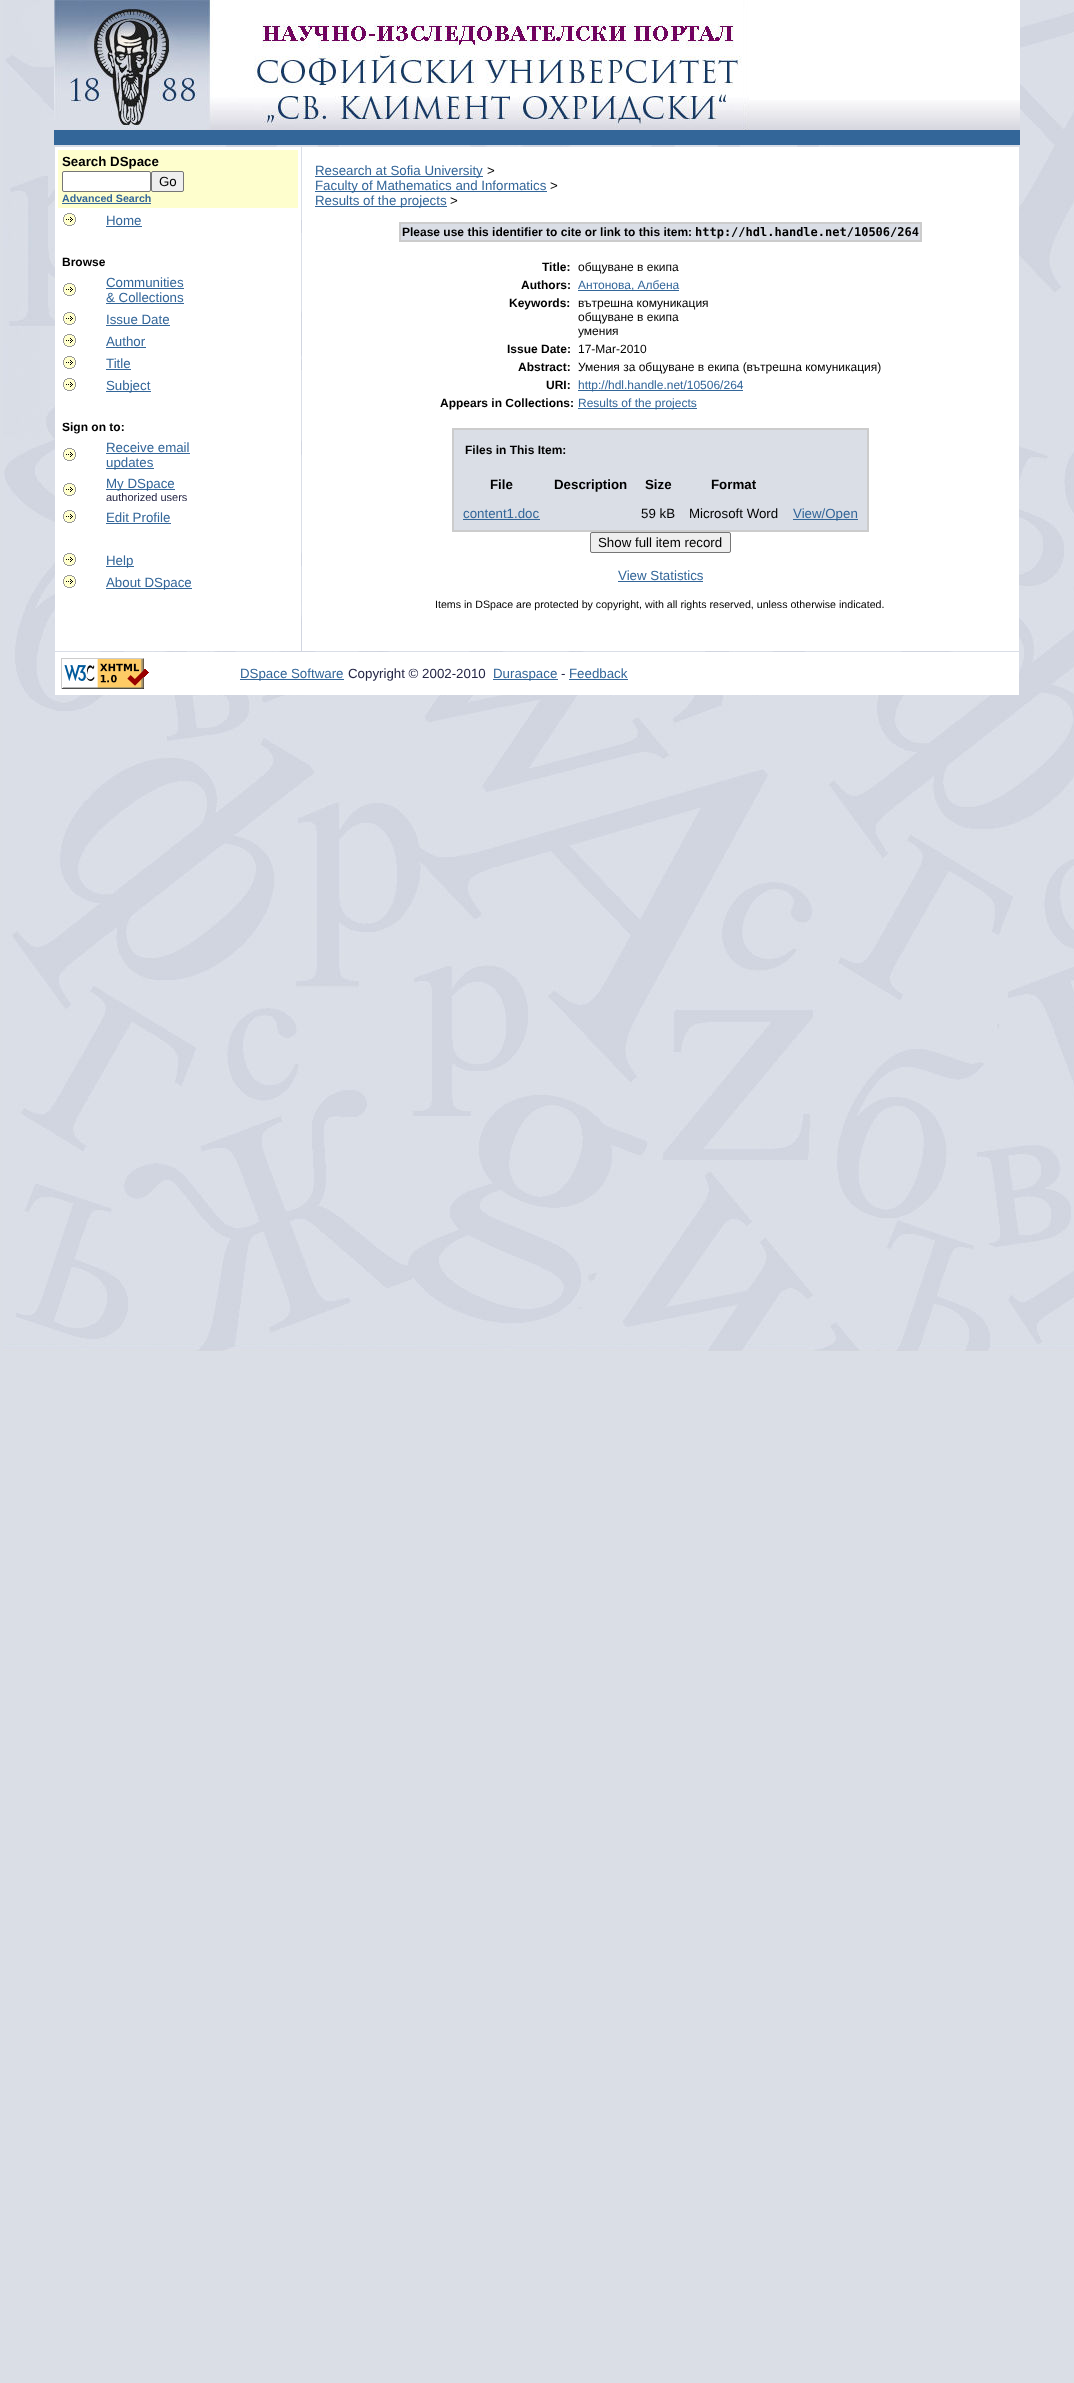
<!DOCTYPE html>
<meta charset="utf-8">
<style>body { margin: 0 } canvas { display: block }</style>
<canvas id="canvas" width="1074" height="2383"></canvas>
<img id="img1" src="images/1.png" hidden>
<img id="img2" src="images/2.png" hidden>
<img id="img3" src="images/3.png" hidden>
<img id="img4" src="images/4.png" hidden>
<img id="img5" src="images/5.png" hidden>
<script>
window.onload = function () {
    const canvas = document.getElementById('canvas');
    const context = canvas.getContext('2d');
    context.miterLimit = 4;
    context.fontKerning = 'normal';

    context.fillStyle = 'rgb(218, 222, 230)';
    context.fillRect(0, 0, 1074, 2383);
    context.drawImage(document.getElementById('img1'), 3, 0, 1071, 1351);
    context.fillStyle = 'rgb(255, 255, 255)';
    context.fillRect(749, 0, 271, 100);
    context.drawImage(document.getElementById('img2'), 749, 100, 271, 30);
    context.drawImage(document.getElementById('img3'), 54, 0, 695, 130);
    context.fillStyle = 'rgb(51, 102, 153)';
    context.fillRect(54, 130, 966, 15);
    context.fillStyle = 'rgb(255, 255, 255)';
    context.fillRect(55, 147, 246, 504);
    context.fillStyle = 'rgb(254, 254, 205)';
    context.fillRect(58, 150, 240, 58);
    context.fillStyle = 'rgb(255, 255, 255)';
    context.beginPath();
    context.roundRect(62.5, 171.5, 88, 20, 1.5);
    context.fill();
    context.strokeStyle = 'rgb(118, 118, 118)';
    context.stroke();
    context.fillStyle = 'rgb(239, 239, 239)';
    context.beginPath();
    context.roundRect(151.5, 171.5, 32, 20, 1.5);
    context.fill();
    context.stroke();
    context.fillStyle = 'rgb(51, 102, 153)';
    context.fillRect(62, 203, 89, 1);
    context.drawImage(document.getElementById('img4'), 63, 213, 13, 13);
    context.fillRect(106, 226, 36, 1);
    context.drawImage(document.getElementById('img4'), 63, 283, 13, 13);
    context.fillRect(106, 288, 78, 1);
    context.fillRect(106, 303, 78, 1);
    context.drawImage(document.getElementById('img4'), 63, 312, 13, 13);
    context.fillRect(106, 325, 64, 1);
    context.drawImage(document.getElementById('img4'), 63, 334, 13, 13);
    context.fillRect(106, 347, 40, 1);
    context.drawImage(document.getElementById('img4'), 63, 356, 13, 13);
    context.fillRect(106, 369, 25, 1);
    context.drawImage(document.getElementById('img4'), 63, 378, 13, 13);
    context.fillRect(106, 391, 45, 1);
    context.drawImage(document.getElementById('img4'), 63, 448, 13, 13);
    context.fillRect(106, 453, 84, 1);
    context.fillRect(106, 468, 48, 1);
    context.drawImage(document.getElementById('img4'), 63, 483, 13, 13);
    context.fillRect(106, 489, 69, 1);
    context.drawImage(document.getElementById('img4'), 63, 510, 13, 13);
    context.fillRect(106, 523, 65, 1);
    context.drawImage(document.getElementById('img4'), 63, 553, 13, 13);
    context.fillRect(106, 566, 28, 1);
    context.drawImage(document.getElementById('img4'), 63, 575, 13, 13);
    context.fillRect(106, 588, 86, 1);
    context.fillStyle = 'rgb(255, 255, 255)';
    context.fillRect(302, 147, 717, 504);
    context.fillStyle = 'rgb(51, 102, 153)';
    context.fillRect(315, 176, 168, 1);
    context.fillRect(315, 191, 232, 1);
    context.fillRect(315, 206, 132, 1);
    context.fillStyle = 'rgb(204, 204, 204)';
    context.fillRect(399, 222, 523, 20);
    context.fillStyle = 'rgb(218, 222, 230)';
    context.fillRect(401, 224, 519, 16);
    context.fillStyle = 'rgb(51, 102, 153)';
    context.fillRect(578, 290, 101, 1);
    context.fillRect(578, 390, 165, 1);
    context.fillRect(578, 408, 119, 1);
    context.fillStyle = 'rgb(204, 204, 204)';
    context.fillRect(452, 428, 417, 104);
    context.fillStyle = 'rgb(218, 222, 230)';
    context.fillRect(454, 430, 413, 100);
    context.fillStyle = 'rgb(51, 102, 153)';
    context.fillRect(463, 519, 77, 1);
    context.fillRect(793, 519, 65, 1);
    context.fillStyle = 'rgb(239, 239, 239)';
    context.beginPath();
    context.roundRect(590.5, 532.5, 140, 20, 1.5);
    context.fill();
    context.stroke();
    context.fillStyle = 'rgb(51, 102, 153)';
    context.fillRect(618, 581, 85, 1);
    context.fillStyle = 'rgb(255, 255, 255)';
    context.fillRect(55, 652, 964, 43);
    context.drawImage(document.getElementById('img5'), 61, 658, 88, 31);
    context.fillStyle = 'rgb(51, 102, 153)';
    context.fillRect(240, 679, 104, 1);
    context.fillRect(493, 679, 65, 1);
    context.fillRect(569, 679, 59, 1);
    context.font = 'bold 13.3px Liberation Sans';
    context.fillStyle = 'rgb(0, 0, 0)';
    context.fillText('Search DSpace', 62, 166);
    context.font = '13.3px Liberation Sans';
    context.fillText('Go', 159, 186);
    context.font = 'bold 10.65px Liberation Sans';
    context.fillStyle = 'rgb(51, 102, 153)';
    context.fillText('Advanced Search', 62, 202);
    context.font = '13.3px Liberation Sans';
    context.fillText('Home', 106, 225);
    context.font = 'bold 12px Liberation Sans';
    context.fillStyle = 'rgb(0, 0, 0)';
    context.fillText('Browse', 62, 266);
    context.font = '13.3px Liberation Sans';
    context.fillStyle = 'rgb(51, 102, 153)';
    context.fillText('Communities', 106, 287);
    context.fillText('& Collections', 106, 302);
    context.fillText('Issue Date', 106, 324);
    context.fillText('Author', 106, 346);
    context.fillText('Title', 106, 368);
    context.fillText('Subject', 106, 390);
    context.font = 'bold 12px Liberation Sans';
    context.fillStyle = 'rgb(0, 0, 0)';
    context.fillText('Sign on to:', 62, 431);
    context.font = '13.3px Liberation Sans';
    context.fillStyle = 'rgb(51, 102, 153)';
    context.fillText('Receive email', 106, 452);
    context.fillText('updates', 106, 467);
    context.fillText('My DSpace', 106, 488);
    context.font = '11px Liberation Sans';
    context.fillStyle = 'rgb(37, 38, 69)';
    context.fillText('authorized users', 106, 501);
    context.font = '13.3px Liberation Sans';
    context.fillStyle = 'rgb(51, 102, 153)';
    context.fillText('Edit Profile', 106, 522);
    context.fillText('Help', 106, 565);
    context.fillText('About DSpace', 106, 587);
    context.fillText('Research at Sofia University', 315, 175);
    context.fillStyle = 'rgb(0, 0, 0)';
    context.fillText('>', 487, 175);
    context.fillStyle = 'rgb(51, 102, 153)';
    context.fillText('Faculty of Mathematics and Informatics', 315, 190);
    context.fillStyle = 'rgb(0, 0, 0)';
    context.fillText('>', 550, 190);
    context.fillStyle = 'rgb(51, 102, 153)';
    context.fillText('Results of the projects', 315, 205);
    context.fillStyle = 'rgb(0, 0, 0)';
    context.fillText('>', 450, 205);
    context.font = 'bold 12px Liberation Sans';
    context.fillText('Please use this identifier to cite or link to this item:', 402, 236);
    context.font = 'bold 12px DejaVu Sans Mono';
    context.fillText('http://hdl.handle.net/10506/264', 695, 236);
    context.font = 'bold 12px Liberation Sans';
    context.fillText('Title:', 542, 271);
    context.font = '12px Liberation Sans';
    context.fillText('общуване в екипа', 578, 271);
    context.font = 'bold 12px Liberation Sans';
    context.fillText('Authors:', 521, 289);
    context.font = '12px Liberation Sans';
    context.fillStyle = 'rgb(51, 102, 153)';
    context.fillText('Антонова, Албена', 578, 289);
    context.font = 'bold 12px Liberation Sans';
    context.fillStyle = 'rgb(0, 0, 0)';
    context.fillText('Keywords:', 509, 307);
    context.font = '12px Liberation Sans';
    context.fillText('вътрешна комуникация', 578, 307);
    context.fillText('общуване в екипа', 578, 321);
    context.fillText('умения', 578, 335);
    context.font = 'bold 12px Liberation Sans';
    context.fillText('Issue Date:', 507, 353);
    context.font = '12px Liberation Sans';
    context.fillText('17-Mar-2010', 578, 353);
    context.font = 'bold 12px Liberation Sans';
    context.fillText('Abstract:', 518, 371);
    context.font = '12px Liberation Sans';
    context.fillText('Умения за общуване в екипа (вътрешна комуникация)', 578, 371);
    context.font = 'bold 12px Liberation Sans';
    context.fillText('URI:', 546, 389);
    context.font = '12px Liberation Sans';
    context.fillStyle = 'rgb(51, 102, 153)';
    context.fillText('http://hdl.handle.net/10506/264', 578, 389);
    context.font = 'bold 12px Liberation Sans';
    context.fillStyle = 'rgb(0, 0, 0)';
    context.fillText('Appears in Collections:', 440, 407);
    context.font = '12px Liberation Sans';
    context.fillStyle = 'rgb(51, 102, 153)';
    context.fillText('Results of the projects', 578, 407);
    context.font = 'bold 12px Liberation Sans';
    context.fillStyle = 'rgb(0, 0, 0)';
    context.fillText('Files in This Item:', 465, 454);
    context.font = 'bold 13.3px Liberation Sans';
    context.fillText('File', 490, 489);
    context.fillText('Description', 554, 489);
    context.fillText('Size', 645, 489);
    context.fillText('Format', 711, 489);
    context.font = '13.3px Liberation Sans';
    context.fillStyle = 'rgb(51, 102, 153)';
    context.fillText('content1.doc', 463, 518);
    context.fillStyle = 'rgb(0, 0, 0)';
    context.fillText('59 kB', 641, 518);
    context.fillText('Microsoft Word', 689, 518);
    context.fillStyle = 'rgb(51, 102, 153)';
    context.fillText('View/Open', 793, 518);
    context.fillStyle = 'rgb(0, 0, 0)';
    context.fillText('Show full item record', 598, 547);
    context.fillStyle = 'rgb(51, 102, 153)';
    context.fillText('View Statistics', 618, 580);
    context.font = '10.65px Liberation Sans';
    context.fillStyle = 'rgb(0, 0, 0)';
    context.fillText('Items in DSpace are protected by copyright, with all rights reserved, unless otherwise indicated.', 435, 608);
    context.font = '13.3px Liberation Sans';
    context.fillStyle = 'rgb(51, 102, 153)';
    context.fillText('DSpace Software', 240, 678);
    context.fillStyle = 'rgb(37, 38, 69)';
    context.fillText('Copyright © 2002-2010', 348, 678);
    context.fillStyle = 'rgb(51, 102, 153)';
    context.fillText('Duraspace', 493, 678);
    context.fillStyle = 'rgb(37, 38, 69)';
    context.fillText('-', 561, 678);
    context.fillStyle = 'rgb(51, 102, 153)';
    context.fillText('Feedback', 569, 678);
};
</script>
